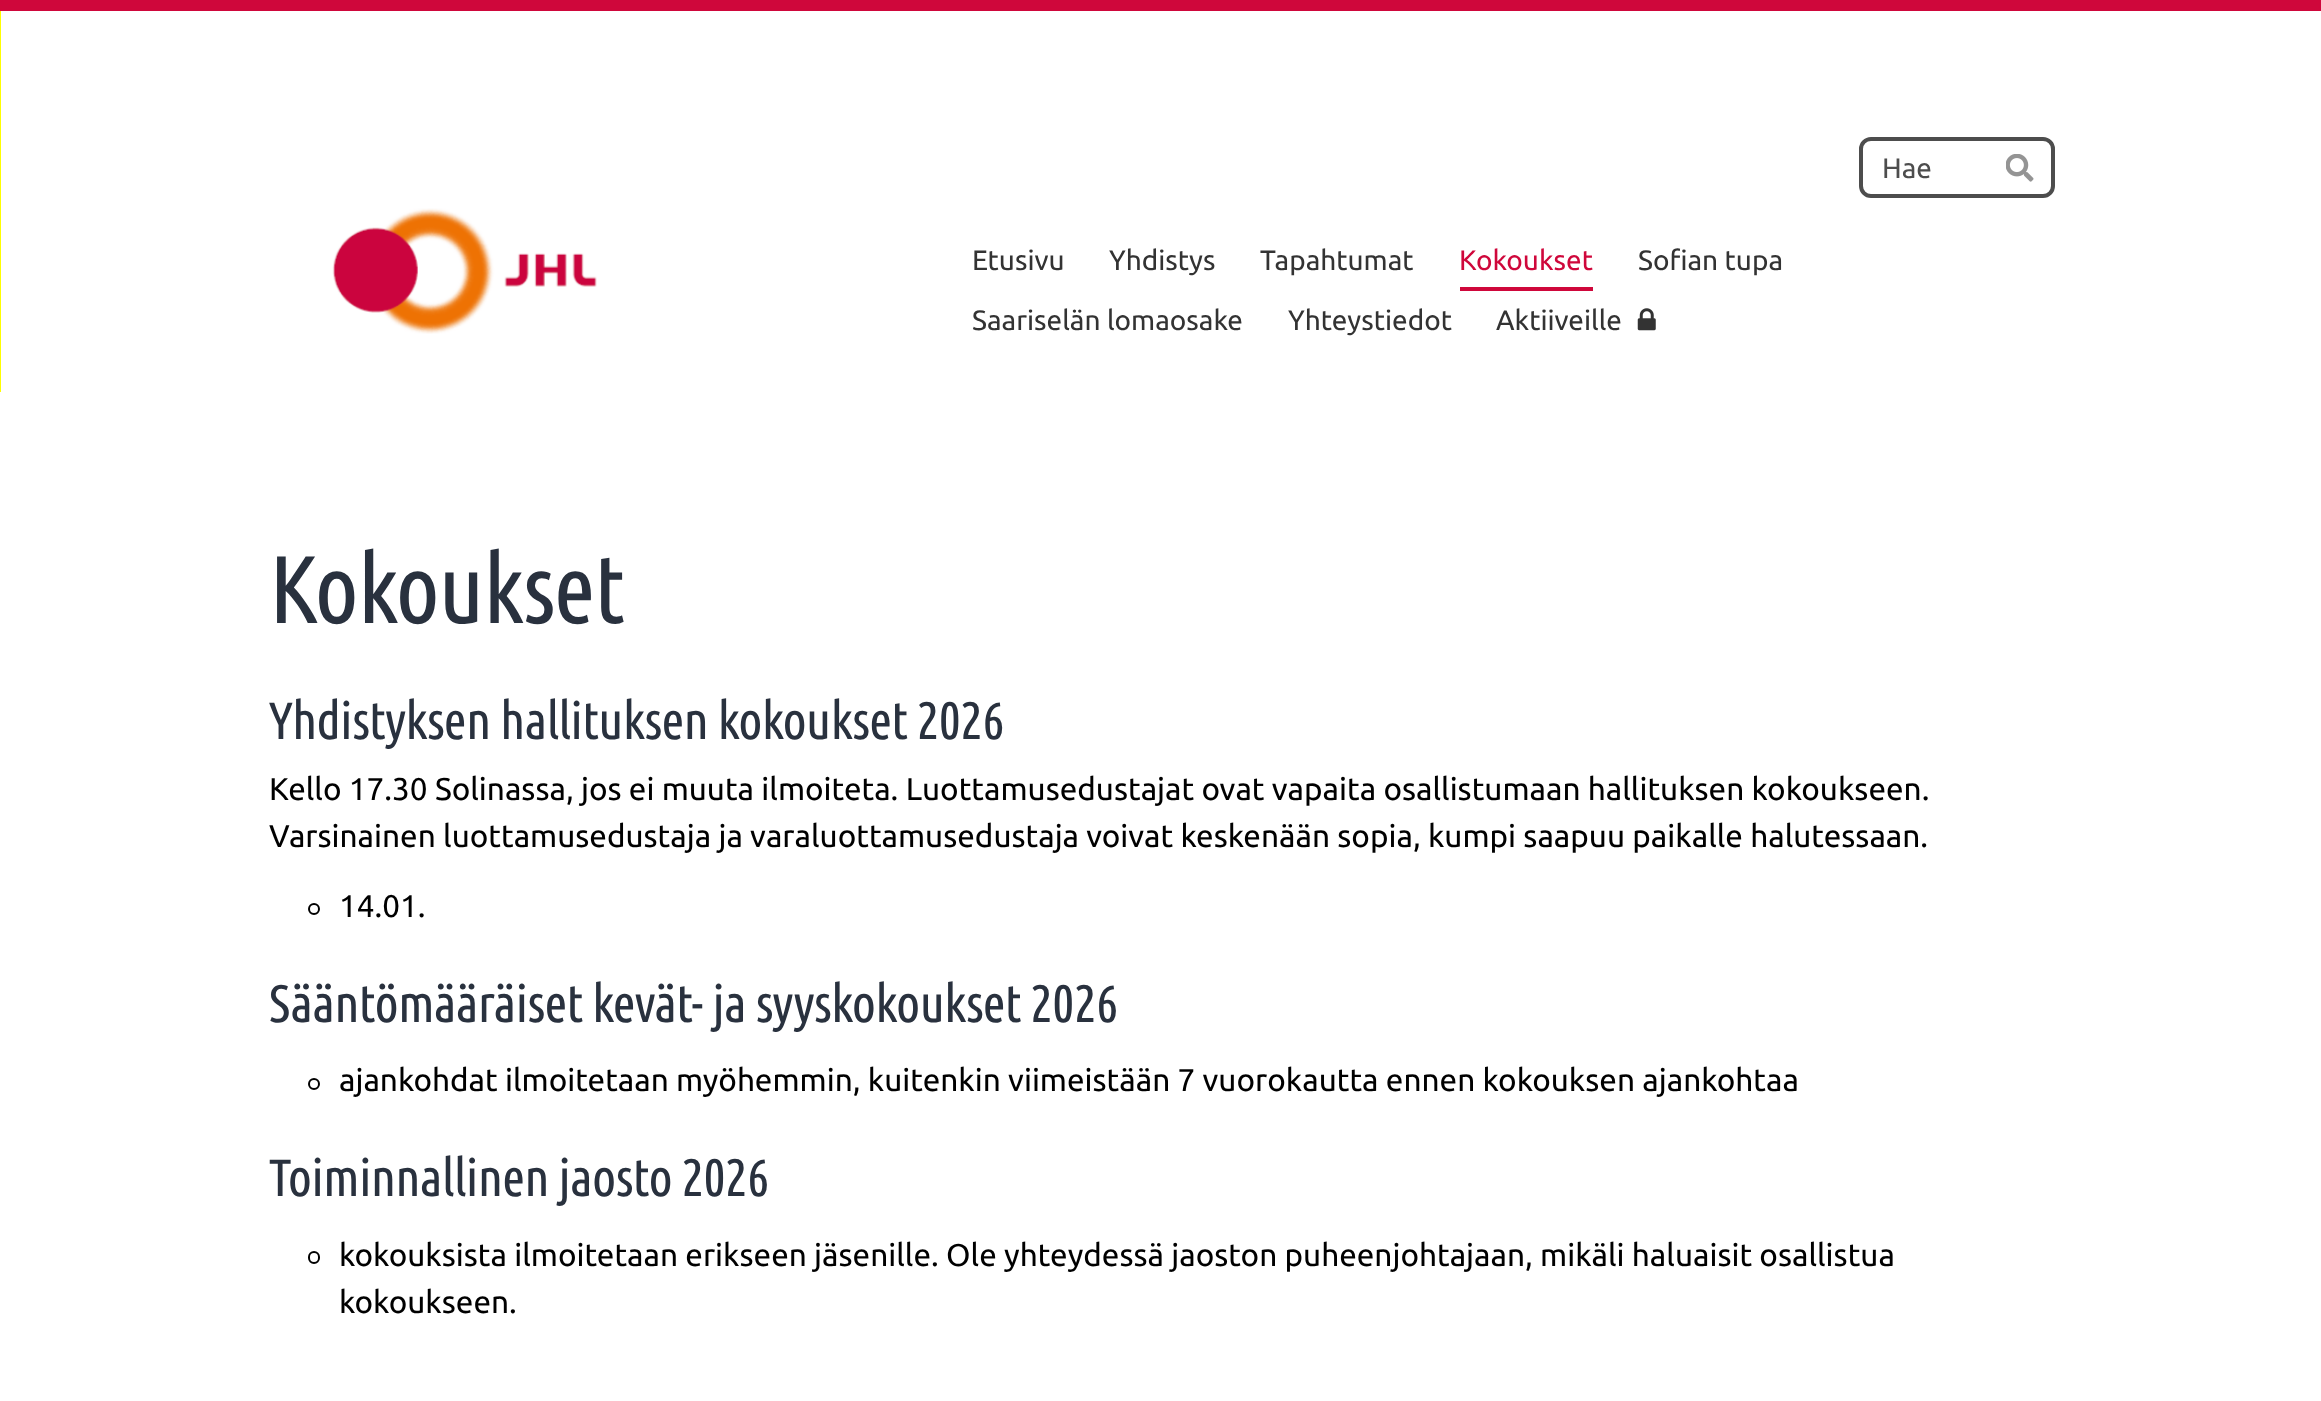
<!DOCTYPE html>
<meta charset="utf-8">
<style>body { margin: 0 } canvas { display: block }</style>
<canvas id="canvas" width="2321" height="1401"></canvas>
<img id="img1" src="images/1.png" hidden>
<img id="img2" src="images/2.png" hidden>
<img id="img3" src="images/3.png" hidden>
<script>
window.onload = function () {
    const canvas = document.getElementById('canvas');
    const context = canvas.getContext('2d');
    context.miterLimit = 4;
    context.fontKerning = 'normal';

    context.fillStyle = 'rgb(255, 255, 255)';
    context.fillRect(0, 0, 2321, 1401);
    context.fillStyle = 'rgb(207, 7, 59)';
    context.fillRect(0, 0, 2321, 11);
    context.save();
    context.beginPath();
    context.rect(0, 11, 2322, 381);
    context.clip();
    context.strokeStyle = 'rgb(255, 255, 0)';
    context.lineWidth = 4;
    context.strokeRect(-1, 9, 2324, 385);
    context.restore();
    context.beginPath();
    context.roundRect(1861, 139, 192, 57, 10);
    context.strokeStyle = 'rgb(77, 77, 77)';
    context.lineWidth = 4;
    context.stroke();
    context.drawImage(document.getElementById('img1'), 2006, 154, 28, 28);
    context.drawImage(document.getElementById('img2'), 332, 208, 265, 126);
    context.fillRect(1460, 287, 133, 4);
    context.drawImage(document.getElementById('img3'), 1637, 308, 19, 23);
    context.beginPath();
    context.arc(314, 909, 5, 0, 2 * Math.PI);
    context.strokeStyle = 'rgb(0, 0, 0)';
    context.lineWidth = 2;
    context.stroke();
    context.beginPath();
    context.arc(314, 1084, 5, 0, 2 * Math.PI);
    context.stroke();
    context.beginPath();
    context.roundRect(309, 1252, 10, 11, 5);
    context.stroke();
    context.font = '28px Ubuntu';
    context.fillStyle = 'rgb(77, 77, 77)';
    context.fillText('Hae', 1882, 178);
    context.fillStyle = 'rgb(51, 51, 51)';
    context.fillText('Etusivu', 972, 270);
    context.fillText('Yhdistys', 1109, 270);
    context.fillText('Tapahtumat', 1260, 270);
    context.fillStyle = 'rgb(207, 7, 59)';
    context.fillText('Kokoukset', 1459, 270);
    context.fillStyle = 'rgb(51, 51, 51)';
    context.fillText('Sofian tupa', 1638, 270);
    context.fillText('Saariselän lomaosake', 972, 330);
    context.fillText('Yhteystiedot', 1288, 330);
    context.fillText('Aktiiveille', 1496, 330);
    context.letterSpacing = '-1.5px';
    context.font = '96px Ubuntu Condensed';
    context.fillStyle = 'rgb(41, 49, 62)';
    context.fillText('Kokoukset', 269, 623);
    context.letterSpacing = '-0.8px';
    context.font = '52.5px Ubuntu Condensed';
    context.fillText('Yhdistyksen hallituksen kokoukset 2026', 269, 739);
    context.letterSpacing = '0px';
    context.font = '31.5px Ubuntu';
    context.fillStyle = 'rgb(0, 0, 0)';
    context.fillText('Kello 17.30 Solinassa, jos ei muuta ilmoiteta. Luottamusedustajat ovat vapaita osallistumaan hallituksen kokoukseen.', 269, 800);
    context.fillText('Varsinainen luottamusedustaja ja varaluottamusedustaja voivat keskenään sopia, kumpi saapuu paikalle halutessaan.', 269, 847);
    context.fillText('14.01.', 339, 917);
    context.letterSpacing = '-0.8px';
    context.font = '52.5px Ubuntu Condensed';
    context.fillStyle = 'rgb(41, 49, 62)';
    context.fillText('Sääntömääräiset kevät- ja syyskokoukset 2026', 269, 1022);
    context.letterSpacing = '0px';
    context.font = '31.5px Ubuntu';
    context.fillStyle = 'rgb(0, 0, 0)';
    context.fillText('ajankohdat ilmoitetaan myöhemmin, kuitenkin viimeistään 7 vuorokautta ennen kokouksen ajankohtaa', 339, 1091);
    context.letterSpacing = '-0.8px';
    context.font = '52.5px Ubuntu Condensed';
    context.fillStyle = 'rgb(41, 49, 62)';
    context.fillText('Toiminnallinen jaosto 2026', 269, 1196);
    context.letterSpacing = '0px';
    context.font = '31.5px Ubuntu';
    context.fillStyle = 'rgb(0, 0, 0)';
    context.fillText('kokouksista ilmoitetaan erikseen jäsenille. Ole yhteydessä jaoston puheenjohtajaan, mikäli haluaisit osallistua', 339, 1266);
    context.fillText('kokoukseen.', 339, 1313);
};
</script>
